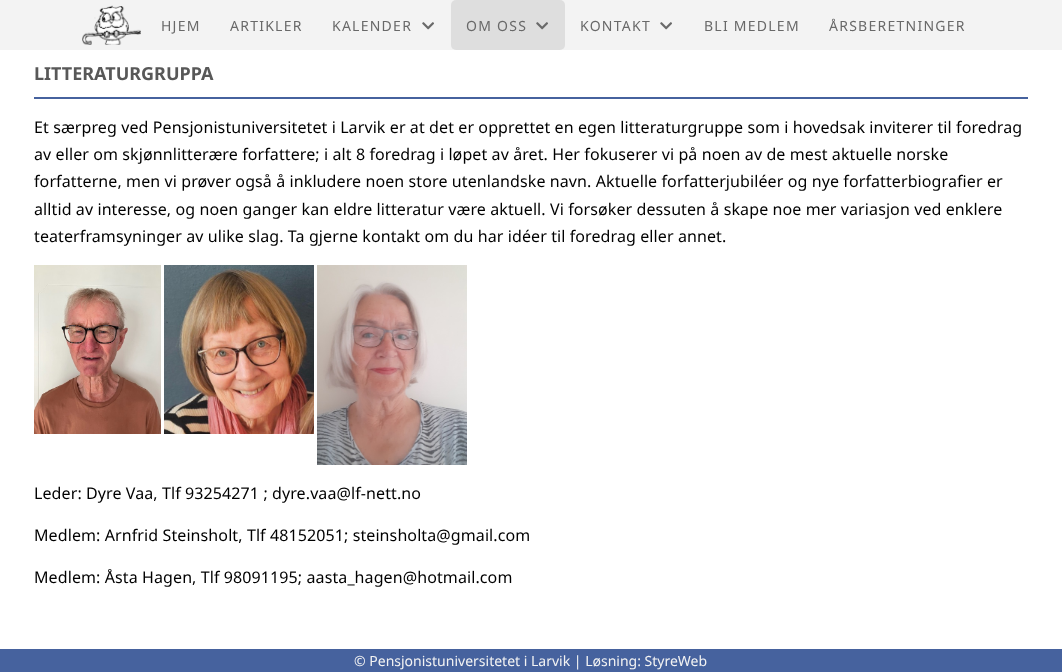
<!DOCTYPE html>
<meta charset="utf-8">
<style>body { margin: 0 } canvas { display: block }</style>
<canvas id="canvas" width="1062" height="672"></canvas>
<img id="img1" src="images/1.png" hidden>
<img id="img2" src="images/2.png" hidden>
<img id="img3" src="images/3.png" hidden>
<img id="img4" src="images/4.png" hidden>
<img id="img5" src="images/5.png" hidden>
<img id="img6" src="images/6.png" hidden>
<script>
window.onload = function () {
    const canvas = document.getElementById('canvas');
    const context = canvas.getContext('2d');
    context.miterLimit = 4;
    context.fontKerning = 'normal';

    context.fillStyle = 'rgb(255, 255, 255)';
    context.fillRect(0, 0, 1062, 672);
    context.fillStyle = 'rgb(243, 243, 243)';
    context.fillRect(0, 0, 1062, 50);
    context.drawImage(document.getElementById('img1'), 82, 5, 59, 40);
    context.drawImage(document.getElementById('img2'), 422, 22, 12, 8);
    context.fillStyle = 'rgb(222, 222, 222)';
    context.beginPath();
    context.roundRect(451, 0, 114, 50, 5);
    context.fill();
    context.drawImage(document.getElementById('img3'), 536, 22, 12, 8);
    context.drawImage(document.getElementById('img2'), 660, 22, 12, 8);
    context.fillStyle = 'rgb(70, 98, 158)';
    context.fillRect(34, 97, 994, 2);
    context.drawImage(document.getElementById('img4'), 34, 265, 127, 169);
    context.drawImage(document.getElementById('img5'), 164, 265, 150, 169);
    context.drawImage(document.getElementById('img6'), 317, 265, 150, 200);
    context.fillRect(0, 649, 1062, 23);
    context.letterSpacing = '1.25px';
    context.font = '14px Noto Sans';
    context.fillStyle = 'rgb(105, 105, 105)';
    context.fillText('HJEM', 161, 31);
    context.fillText('ARTIKLER', 230, 31);
    context.fillText('KALENDER', 332, 31);
    context.fillText('OM OSS', 466, 31);
    context.fillText('KONTAKT', 580, 31);
    context.fillText('BLI MEDLEM', 704, 31);
    context.fillText('ÅRSBERETNINGER', 829, 31);
    context.letterSpacing = '0px';
    context.font = 'bold 18px Noto Sans';
    context.fillStyle = 'rgb(88, 88, 88)';
    context.fillText('LITTERATURGRUPPA', 34, 80);
    context.letterSpacing = '0.1px';
    context.font = '16px Noto Sans';
    context.fillStyle = 'rgb(0, 0, 0)';
    context.fillText('Et særpreg ved Pensjonistuniversitetet i Larvik er at det er opprettet en egen litteraturgruppe som i hovedsak inviterer til foredrag', 34, 133);
    context.fillText('av eller om skjønnlitterære forfattere; i alt 8 foredrag i løpet av året. Her fokuserer vi på noen av de mest aktuelle norske', 34, 160);
    context.fillText('forfatterne, men vi prøver også å inkludere noen store utenlandske navn. Aktuelle forfatterjubiléer og nye forfatterbiografier er', 34, 187);
    context.fillText('alltid av interesse, og noen ganger kan eldre litteratur være aktuell. Vi forsøker dessuten å skape noe mer variasjon ved enklere', 34, 215);
    context.fillText('teaterframsyninger av ulike slag. Ta gjerne kontakt om du har idéer til foredrag eller annet.', 34, 242);
    context.fillText('Leder: Dyre Vaa, Tlf 93254271 ; dyre.vaa@lf-nett.no', 34, 499);
    context.fillText('Medlem: Arnfrid Steinsholt, Tlf 48152051; steinsholta@gmail.com', 34, 541);
    context.fillText('Medlem: Åsta Hagen, Tlf 98091195; aasta_hagen@hotmail.com', 34, 583);
    context.letterSpacing = '0px';
    context.font = '14px Noto Sans';
    context.fillStyle = 'rgb(243, 243, 243)';
    context.fillText('© Pensjonistuniversitetet i Larvik | Løsning: StyreWeb', 354, 666);
};
</script>
